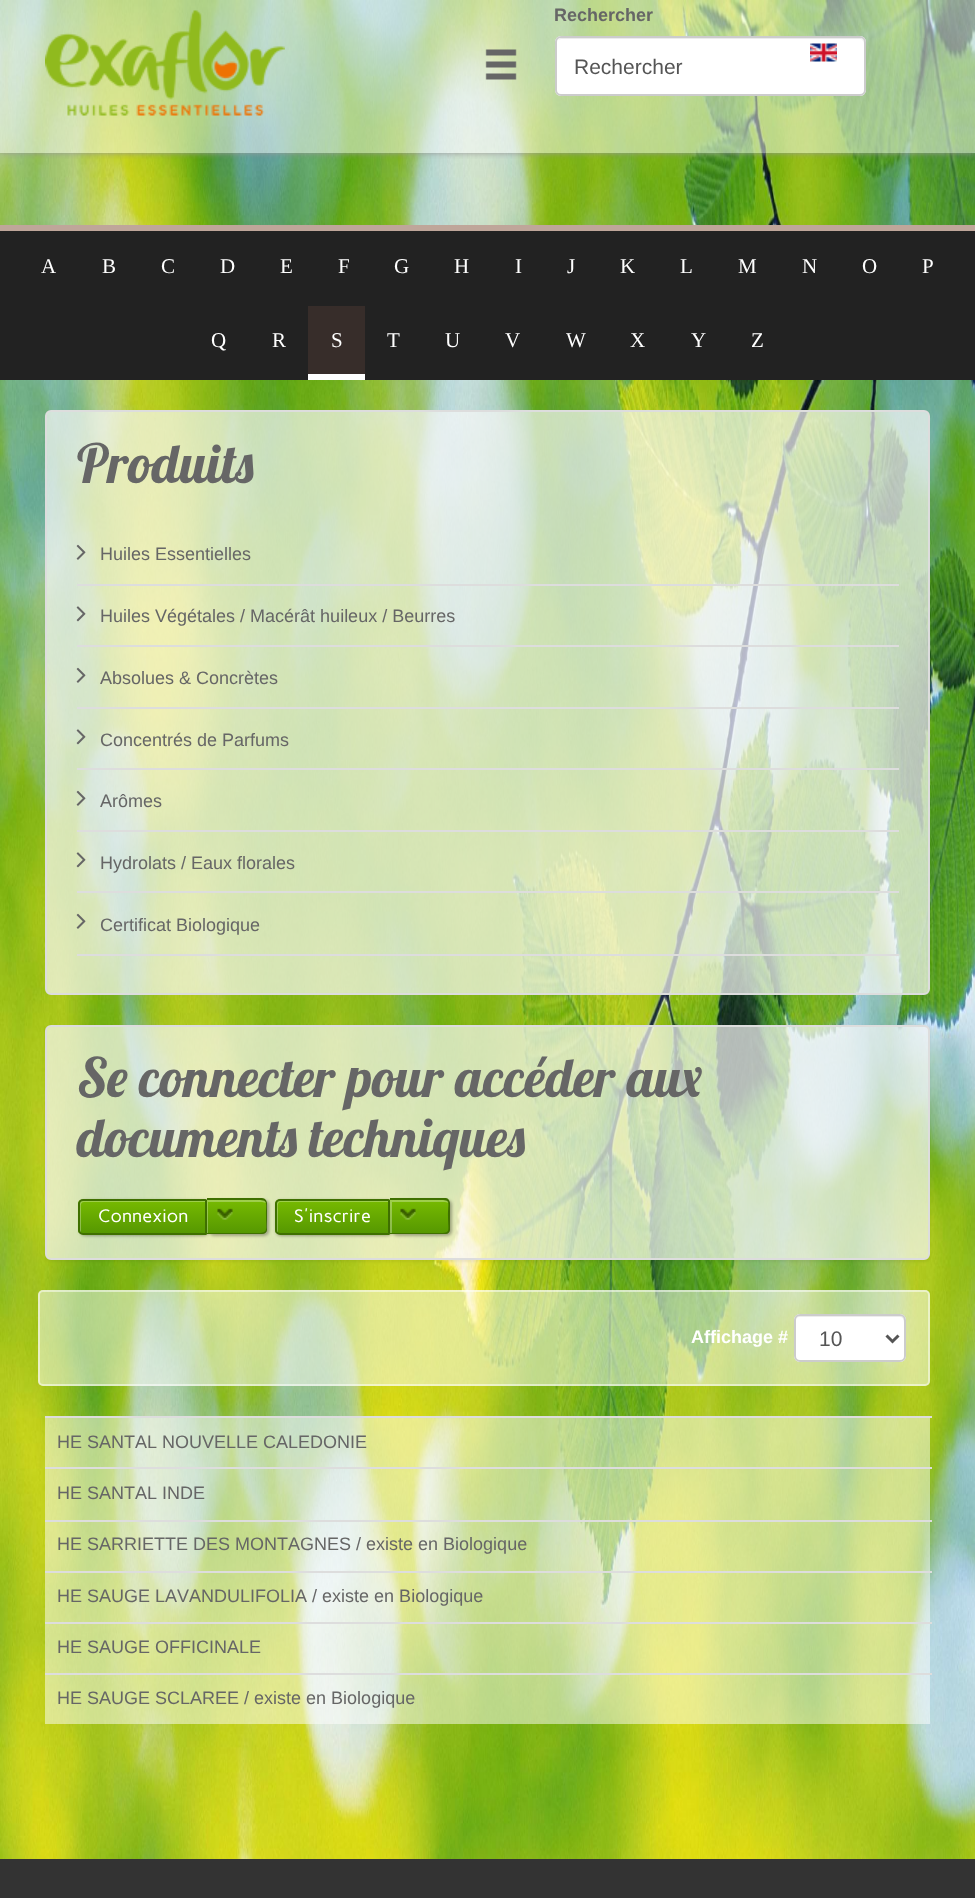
<!DOCTYPE html>
<meta charset="utf-8">
<style>body { margin: 0 } canvas { display: block }</style>
<canvas id="canvas" width="975" height="1898"></canvas>
<img id="img1" src="images/1.png" hidden>
<img id="img2" src="images/2.png" hidden>
<img id="img3" src="images/3.png" hidden>
<img id="img4" src="images/4.png" hidden>
<img id="img5" src="images/5.png" hidden>
<img id="img6" src="images/6.png" hidden>
<img id="img7" src="images/7.png" hidden>
<img id="img8" src="images/8.png" hidden>
<img id="img9" src="images/9.png" hidden>
<img id="img10" src="images/10.png" hidden>
<img id="img11" src="images/11.png" hidden>
<img id="img12" src="images/12.png" hidden>
<img id="img13" src="images/13.png" hidden>
<script>
window.onload = function () {
    const canvas = document.getElementById('canvas');
    const context = canvas.getContext('2d');
    context.miterLimit = 4;
    context.fontKerning = 'none';
    let gradient;

    context.fillStyle = 'rgb(255, 255, 255)';
    context.fillRect(0, 0, 975, 1898);
    context.drawImage(document.getElementById('img1'), 0, 0, 975, 1859);
    context.save();
    context.beginPath();
    context.rect(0, 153, 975, 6);
    context.clip();
    context.fillStyle = 'rgb(153, 153, 153)';
    context.filter = 'blur(3px)';
    context.beginPath();
    context.rect(0, 0, 975, 153);
    context.fill();
    context.filter = 'none';
    context.restore();
    context.fillStyle = 'rgba(255, 255, 255, 0.5)';
    context.fillRect(0, 0, 975, 153);
    context.drawImage(document.getElementById('img2'), 45, 10, 240, 106);
    context.drawImage(document.getElementById('img3'), 485, 49, 32, 31);
    context.fillStyle = 'rgb(255, 255, 255)';
    context.beginPath();
    context.roundRect(555, 36, 311, 60, 6);
    context.fill();
    context.fillStyle = 'rgb(236, 236, 236)';
    context.beginPath();
    context.moveTo(561, 39);
    context.lineTo(860, 39);
    context.bezierCurveTo(862, 39, 864, 41, 864, 44);
    context.lineTo(864, 43);
    context.bezierCurveTo(864, 40, 862, 38, 859, 38);
    context.lineTo(562, 38);
    context.bezierCurveTo(560, 38, 559, 39, 558, 40);
    context.closePath();
    context.fill();
    context.beginPath();
    context.roundRect(556, 37, 309, 58, 5);
    context.strokeStyle = 'rgb(204, 204, 204)';
    context.lineWidth = 2;
    context.stroke();
    context.drawImage(document.getElementById('img4'), 810, 43, 27, 19);
    context.fillStyle = 'rgb(34, 34, 34)';
    context.fillRect(0, 231, 975, 149);
    context.fillStyle = 'rgb(191, 166, 154)';
    context.fillRect(0, 225, 975, 6);
    context.fillStyle = 'rgb(55, 45, 42)';
    context.fillRect(308, 306, 57, 68);
    context.fillStyle = 'rgb(255, 255, 255)';
    context.fillRect(308, 374, 57, 6);
    context.fillStyle = 'rgba(250, 250, 250, 0.7)';
    context.beginPath();
    context.roundRect(46, 411, 883, 583, 5);
    context.fill();
    context.strokeStyle = 'rgb(221, 221, 221)';
    context.stroke();
    context.fillStyle = 'rgb(221, 221, 221)';
    context.fillRect(77, 584, 822, 2);
    context.drawImage(document.getElementById('img5'), 76, 544, 10, 16);
    context.fillRect(77, 645, 822, 2);
    context.drawImage(document.getElementById('img6'), 76, 606, 10, 16);
    context.fillRect(77, 707, 822, 2);
    context.drawImage(document.getElementById('img7'), 76, 667, 10, 16);
    context.fillRect(77, 768, 822, 2);
    context.drawImage(document.getElementById('img8'), 76, 729, 10, 16);
    context.fillRect(77, 830, 822, 2);
    context.drawImage(document.getElementById('img9'), 76, 790, 10, 16);
    context.fillRect(77, 891, 822, 2);
    context.drawImage(document.getElementById('img10'), 76, 852, 10, 16);
    context.fillRect(77, 954, 822, 2);
    context.drawImage(document.getElementById('img11'), 76, 913, 10, 16);
    context.save();
    context.beginPath();
    context.moveTo(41, 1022);
    context.lineTo(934, 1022);
    context.lineTo(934, 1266);
    context.lineTo(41, 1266);
    context.closePath();
    context.moveTo(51, 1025);
    context.lineTo(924, 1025);
    context.bezierCurveTo(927.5, 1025, 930, 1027.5, 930, 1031);
    context.lineTo(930, 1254);
    context.bezierCurveTo(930, 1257.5, 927.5, 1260, 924, 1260);
    context.lineTo(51, 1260);
    context.bezierCurveTo(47.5, 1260, 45, 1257.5, 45, 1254);
    context.lineTo(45, 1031);
    context.bezierCurveTo(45, 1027.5, 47.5, 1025, 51, 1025);
    context.closePath();
    context.clip('evenodd');
    context.fillStyle = 'rgba(0, 0, 0, 0.05)';
    context.filter = 'blur(1px)';
    context.beginPath();
    context.roundRect(45, 1026, 885, 236, 6);
    context.fill();
    context.filter = 'none';
    context.restore();
    context.fillStyle = 'rgba(250, 250, 250, 0.7)';
    context.beginPath();
    context.roundRect(46, 1026, 883, 233, 5);
    context.fill();
    context.stroke();
    context.fillStyle = 'rgba(0, 0, 0, 0.3)';
    context.filter = 'blur(1.5px)';
    context.beginPath();
    context.roundRect(80, 1200, 129, 36, 5);
    context.fill();
    context.filter = 'none';
    context.save();
    context.beginPath();
    context.roundRect(78, 1199, 129, 36, [5, 1.5, 1.5, 5]);
    context.clip();
    gradient = context.createLinearGradient(143, 1200, 143, 1233);
    gradient.addColorStop(0, 'rgb(119, 186, 1)');
    gradient.addColorStop(1, 'rgb(86, 152, 1)');
    context.fillStyle = gradient;
    context.fillRect(78, 1200, 129, 33);
    context.restore();
    context.fillStyle = 'rgba(255, 255, 255, 0.3)';
    context.beginPath();
    context.moveTo(84, 1202);
    context.lineTo(206, 1202);
    context.lineTo(206, 1200);
    context.lineTo(83, 1200);
    context.bezierCurveTo(81, 1200, 80, 1201, 80, 1203);
    context.lineTo(80, 1230);
    context.bezierCurveTo(80, 1231, 80, 1232, 81, 1232);
    context.lineTo(81, 1209);
    context.bezierCurveTo(81, 1206, 80, 1202, 84, 1202);
    context.closePath();
    context.fill();
    context.beginPath();
    context.roundRect(79, 1200, 127, 34, [4, 0.5, 0.5, 4]);
    context.strokeStyle = 'rgb(63, 112, 0)';
    context.stroke();
    context.fillStyle = 'rgba(0, 0, 0, 0.3)';
    context.filter = 'blur(1.5px)';
    context.beginPath();
    context.roundRect(209, 1200, 60, 36, 5);
    context.fill();
    context.filter = 'none';
    gradient = context.createLinearGradient(236, 1200, 236, 1233);
    gradient.addColorStop(0, 'rgb(119, 186, 1)');
    gradient.addColorStop(1, 'rgb(86, 152, 1)');
    context.fillStyle = gradient;
    context.beginPath();
    context.roundRect(207, 1200, 59, 33, [0, 3, 3, 0]);
    context.fill();
    context.fillStyle = 'rgba(255, 255, 255, 0.3)';
    context.beginPath();
    context.moveTo(208, 1202);
    context.lineTo(255, 1202);
    context.bezierCurveTo(261, 1202, 264, 1202, 266, 1203);
    context.bezierCurveTo(266, 1201, 265, 1200, 263, 1200);
    context.lineTo(207, 1200);
    context.lineTo(207, 1233);
    context.lineTo(208, 1233);
    context.closePath();
    context.fill();
    context.fillStyle = 'rgb(63, 112, 0)';
    context.beginPath();
    context.moveTo(207, 1198);
    context.lineTo(262, 1198);
    context.bezierCurveTo(265, 1198, 267, 1201, 267, 1203);
    context.lineTo(267, 1230);
    context.bezierCurveTo(267, 1232, 265, 1234, 262, 1234);
    context.lineTo(207, 1234);
    context.closePath();
    context.moveTo(207, 1200);
    context.lineTo(253, 1200);
    context.bezierCurveTo(269, 1200, 266, 1200, 266, 1216);
    context.bezierCurveTo(266, 1233, 269, 1233, 253, 1233);
    context.lineTo(207, 1233);
    context.closePath();
    context.fill('evenodd');
    context.drawImage(document.getElementById('img12'), 217, 1208, 16, 12);
    context.fillStyle = 'rgba(0, 0, 0, 0.3)';
    context.filter = 'blur(1.5px)';
    context.beginPath();
    context.roundRect(276, 1200, 116, 36, 5);
    context.fill();
    context.filter = 'none';
    context.save();
    context.beginPath();
    context.roundRect(275, 1199, 115, 36, [5, 1.5, 1.5, 5]);
    context.clip();
    gradient = context.createLinearGradient(332, 1200, 332, 1233);
    gradient.addColorStop(0, 'rgb(119, 186, 1)');
    gradient.addColorStop(1, 'rgb(86, 152, 1)');
    context.fillStyle = gradient;
    context.fillRect(275, 1200, 115, 33);
    context.restore();
    context.fillStyle = 'rgba(255, 255, 255, 0.3)';
    context.beginPath();
    context.moveTo(280, 1202);
    context.lineTo(389, 1202);
    context.lineTo(389, 1200);
    context.lineTo(279, 1200);
    context.bezierCurveTo(277, 1200, 276, 1201, 276, 1203);
    context.lineTo(276, 1230);
    context.bezierCurveTo(276, 1231, 277, 1233, 278, 1233);
    context.lineTo(278, 1209);
    context.bezierCurveTo(278, 1208, 277, 1202, 280, 1202);
    context.closePath();
    context.fill();
    context.beginPath();
    context.roundRect(276, 1200, 113, 34, [4, 0.5, 0.5, 4]);
    context.stroke();
    context.fillStyle = 'rgba(0, 0, 0, 0.3)';
    context.filter = 'blur(1.5px)';
    context.beginPath();
    context.roundRect(392, 1200, 60, 36, 5);
    context.fill();
    context.filter = 'none';
    gradient = context.createLinearGradient(419, 1200, 419, 1233);
    gradient.addColorStop(0, 'rgb(119, 186, 1)');
    gradient.addColorStop(1, 'rgb(86, 152, 1)');
    context.fillStyle = gradient;
    context.beginPath();
    context.roundRect(390, 1200, 59, 33, [0, 3, 3, 0]);
    context.fill();
    context.fillStyle = 'rgba(255, 255, 255, 0.3)';
    context.beginPath();
    context.moveTo(392, 1202);
    context.lineTo(438, 1202);
    context.bezierCurveTo(444, 1202, 447, 1202, 449, 1203);
    context.bezierCurveTo(449, 1201, 448, 1200, 446, 1200);
    context.lineTo(390, 1200);
    context.lineTo(390, 1233);
    context.lineTo(392, 1233);
    context.closePath();
    context.fill();
    context.fillStyle = 'rgb(63, 112, 0)';
    context.beginPath();
    context.moveTo(390, 1198);
    context.lineTo(446, 1198);
    context.bezierCurveTo(448, 1198, 450, 1201, 450, 1203);
    context.lineTo(450, 1230);
    context.bezierCurveTo(450, 1232, 448, 1234, 446, 1234);
    context.lineTo(390, 1234);
    context.closePath();
    context.moveTo(390, 1200);
    context.lineTo(436, 1200);
    context.bezierCurveTo(452, 1200, 448, 1200, 448, 1216);
    context.bezierCurveTo(448, 1233, 452, 1233, 436, 1233);
    context.lineTo(390, 1233);
    context.closePath();
    context.fill('evenodd');
    context.drawImage(document.getElementById('img13'), 400, 1208, 16, 12);
    context.fillStyle = 'rgba(255, 255, 255, 0.5)';
    context.beginPath();
    context.roundRect(38, 1290, 892, 96, 5);
    context.fill();
    context.beginPath();
    context.roundRect(39, 1291, 890, 94, 4);
    context.strokeStyle = 'rgba(255, 255, 255, 0.5)';
    context.stroke();
    context.fillStyle = 'rgb(255, 255, 255)';
    context.beginPath();
    context.roundRect(794, 1314, 112, 48, 6);
    context.fill();
    context.fillStyle = 'rgb(236, 236, 236)';
    context.beginPath();
    context.moveTo(800, 1317);
    context.lineTo(900, 1317);
    context.bezierCurveTo(905, 1317, 904, 1325, 904, 1328);
    context.lineTo(904, 1359);
    context.bezierCurveTo(905, 1358, 905, 1357, 905, 1356);
    context.lineTo(905, 1321);
    context.bezierCurveTo(905, 1318, 903, 1316, 900, 1316);
    context.lineTo(800, 1316);
    context.bezierCurveTo(797, 1316, 795, 1318, 795, 1321);
    context.lineTo(795, 1322);
    context.bezierCurveTo(795, 1319, 797, 1317, 800, 1317);
    context.closePath();
    context.fill();
    context.beginPath();
    context.roundRect(795, 1315, 110, 46, 5);
    context.strokeStyle = 'rgb(204, 204, 204)';
    context.stroke();
    context.beginPath();
    context.moveTo(886.5, 1335.5);
    context.lineTo(892.5, 1341.5);
    context.lineTo(898.5, 1335.5);
    context.strokeStyle = 'rgb(85, 85, 85)';
    context.lineWidth = 3;
    context.stroke();
    context.fillStyle = 'rgba(255, 255, 255, 0.5)';
    context.fillRect(45, 1418, 885, 49);
    context.fillStyle = 'rgb(221, 221, 221)';
    context.fillRect(45, 1416, 887, 2);
    context.fillStyle = 'rgba(255, 255, 255, 0.5)';
    context.fillRect(45, 1469, 885, 51);
    context.fillStyle = 'rgb(221, 221, 221)';
    context.fillRect(45, 1467, 887, 2);
    context.fillStyle = 'rgba(255, 255, 255, 0.5)';
    context.fillRect(45, 1522, 885, 49);
    context.fillStyle = 'rgb(221, 221, 221)';
    context.fillRect(45, 1520, 887, 2);
    context.fillStyle = 'rgba(255, 255, 255, 0.5)';
    context.fillRect(45, 1573, 885, 49);
    context.fillStyle = 'rgb(221, 221, 221)';
    context.fillRect(45, 1571, 887, 2);
    context.fillStyle = 'rgba(255, 255, 255, 0.5)';
    context.fillRect(45, 1624, 885, 49);
    context.fillStyle = 'rgb(221, 221, 221)';
    context.fillRect(45, 1622, 887, 2);
    context.fillStyle = 'rgba(255, 255, 255, 0.5)';
    context.fillRect(45, 1675, 885, 49);
    context.fillStyle = 'rgb(221, 221, 221)';
    context.fillRect(45, 1673, 887, 2);
    context.fillStyle = 'rgb(51, 51, 51)';
    context.fillRect(0, 1859, 975, 39);
    context.font = 'bold 18px Liberation Sans';
    context.fillStyle = 'rgb(102, 102, 102)';
    context.fillText('Rechercher', 554, 21);
    context.font = '21px Liberation Sans';
    context.fillStyle = 'rgb(85, 85, 85)';
    context.fillText('Rechercher', 574, 74);
    context.font = '21px Liberation Serif';
    context.fillStyle = 'rgb(255, 255, 255)';
    context.fillText('A', 41, 273);
    context.fillText('B', 102, 273);
    context.fillText('C', 161, 273);
    context.fillText('D', 220, 273);
    context.fillText('E', 280, 273);
    context.fillText('F', 338, 273);
    context.fillText('G', 394, 273);
    context.fillText('H', 454, 273);
    context.fillText('I', 515, 273);
    context.fillText('J', 567, 273);
    context.fillText('K', 620, 273);
    context.fillText('L', 680, 273);
    context.fillText('M', 738, 273);
    context.fillText('N', 802, 273);
    context.fillText('O', 862, 273);
    context.fillText('P', 922, 273);
    context.fillText('Q', 211, 347);
    context.fillText('R', 272, 347);
    context.fillText('S', 331, 347);
    context.fillText('T', 387, 347);
    context.fillText('U', 445, 347);
    context.fillText('V', 505, 347);
    context.fillText('W', 566, 347);
    context.fillText('X', 630, 347);
    context.fillText('Y', 691, 347);
    context.fillText('Z', 751, 347);
    context.font = '54px Lobster';
    context.fillStyle = 'rgb(102, 102, 102)';
    context.fillText('Produits', 77, 483);
    context.font = '18px Liberation Sans';
    context.fillText('Huiles Essentielles', 100, 560);
    context.fillText('Huiles Végétales / Macérât huileux / Beurres', 100, 622);
    context.fillText('Absolues & Concrètes', 100, 684);
    context.fillText('Concentrés de Parfums', 100, 746);
    context.fillText('Arômes', 100, 807);
    context.fillText('Hydrolats / Eaux florales', 100, 869);
    context.fillText('Certificat Biologique', 100, 931);
    context.font = '54px Lobster';
    context.fillText('Se connecter pour accéder aux', 77, 1097);
    context.fillText('documents techniques', 77, 1157);
    context.font = '18px Carme';
    context.fillStyle = 'rgb(255, 255, 255)';
    context.fillText('Connexion', 98, 1222);
    context.fillText('S\'inscrire', 294, 1222);
    context.font = 'bold 18px Liberation Sans';
    context.fillText('Affichage #', 691, 1343);
    context.font = '21px Liberation Sans';
    context.fillStyle = 'rgb(85, 85, 85)';
    context.fillText('10', 819, 1346);
    context.font = '18px Liberation Sans';
    context.fillStyle = 'rgb(102, 102, 102)';
    context.fillText('HE SANTAL NOUVELLE CALEDONIE', 57, 1448);
    context.fillText('HE SANTAL INDE', 57, 1499);
    context.fillText('HE SARRIETTE DES MONTAGNES / existe en Biologique', 57, 1550);
    context.fillText('HE SAUGE LAVANDULIFOLIA / existe en Biologique', 57, 1602);
    context.fillText('HE SAUGE OFFICINALE', 57, 1653);
    context.fillText('HE SAUGE SCLAREE / existe en Biologique', 57, 1704);
};
</script>
